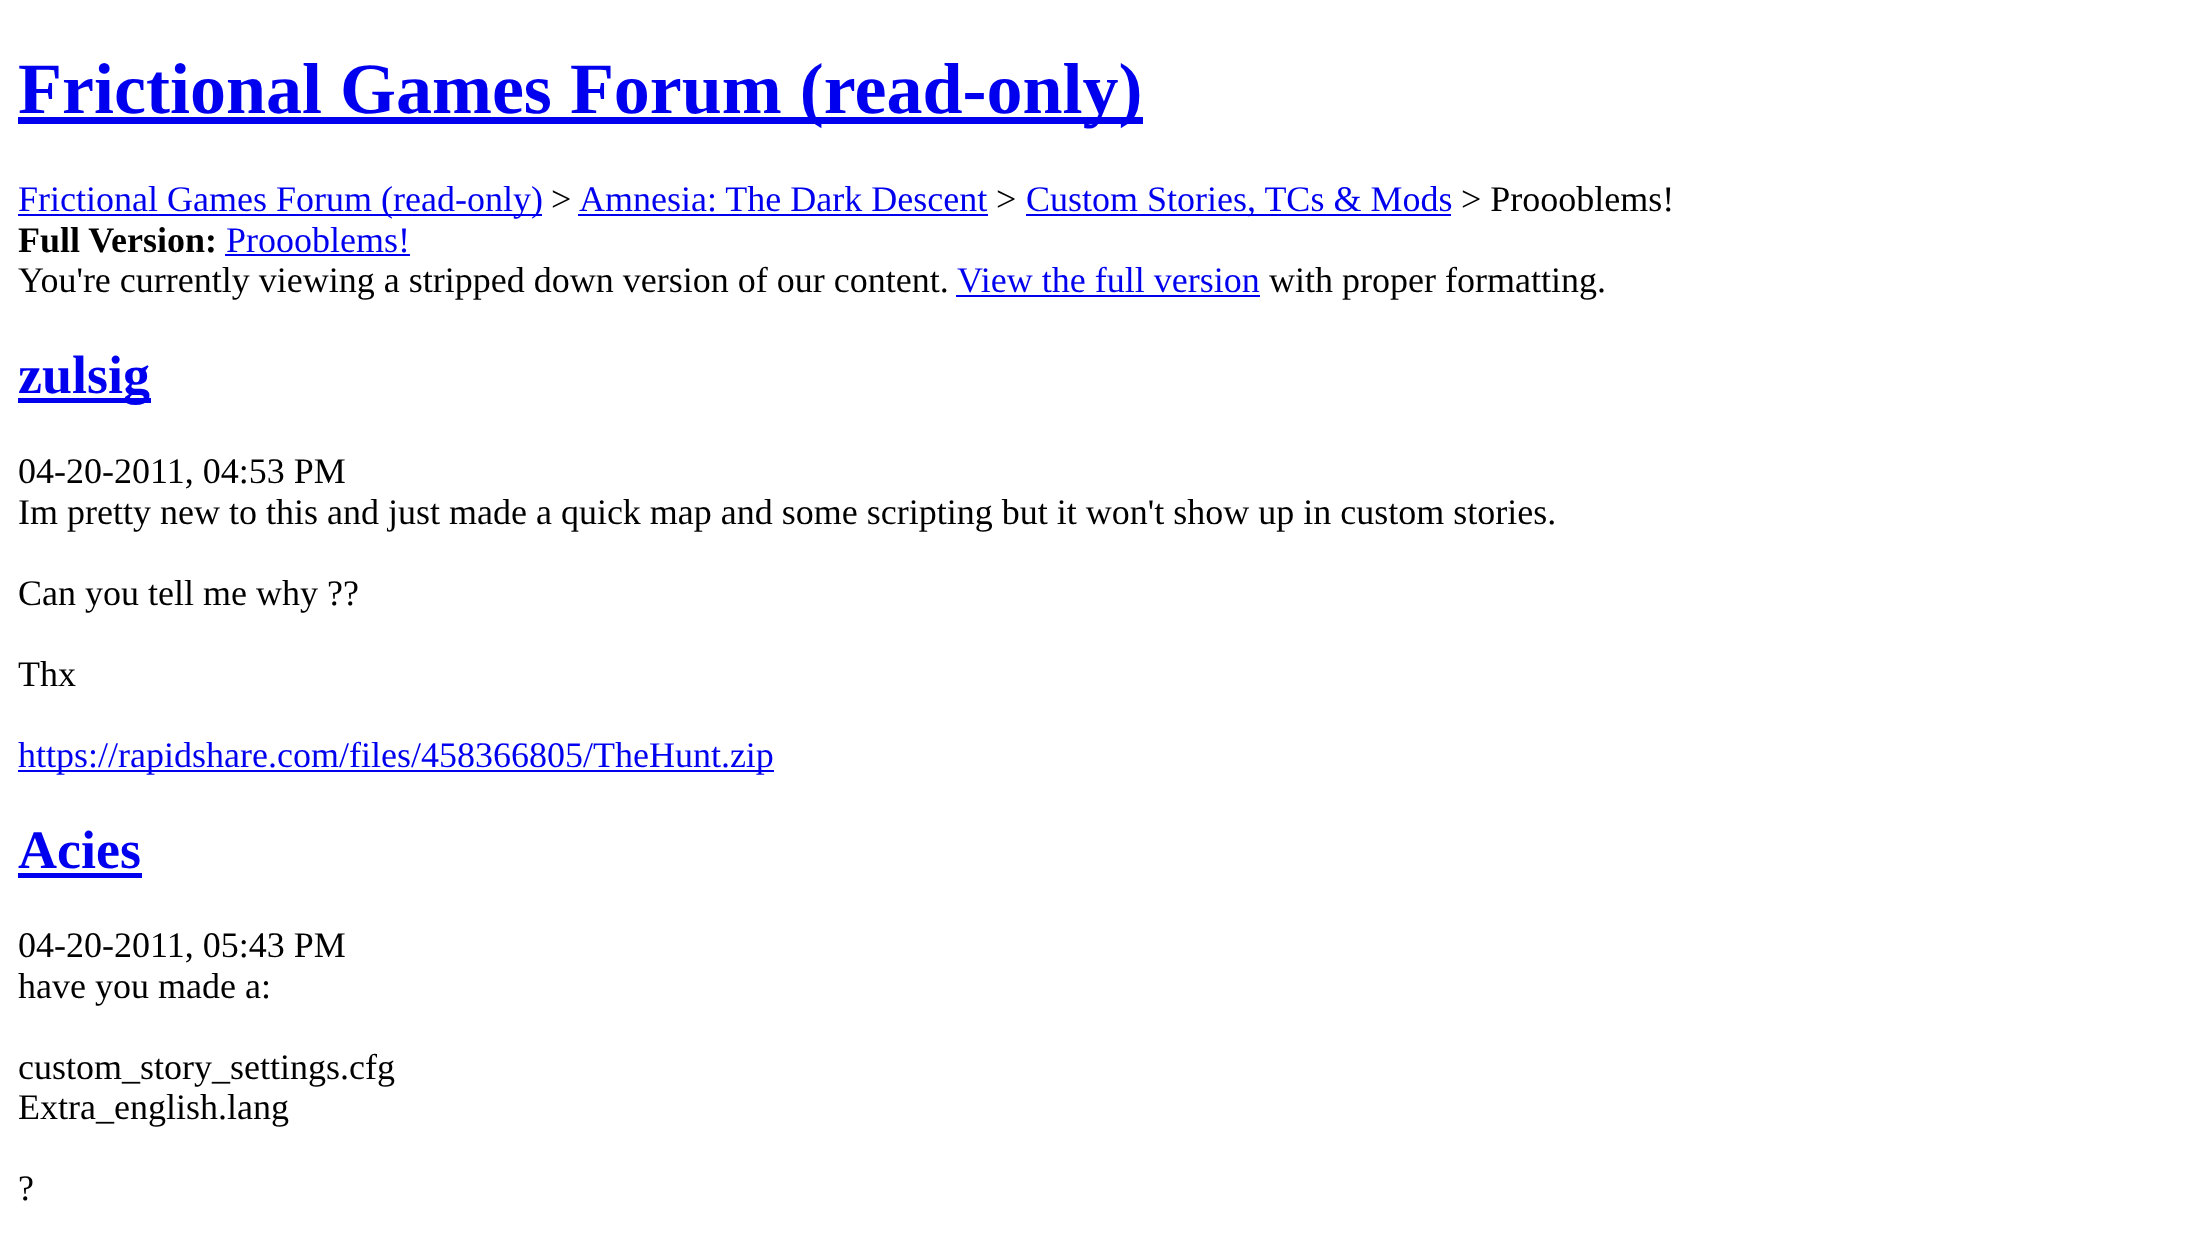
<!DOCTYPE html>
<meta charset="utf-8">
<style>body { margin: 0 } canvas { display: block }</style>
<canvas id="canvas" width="2186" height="1254"></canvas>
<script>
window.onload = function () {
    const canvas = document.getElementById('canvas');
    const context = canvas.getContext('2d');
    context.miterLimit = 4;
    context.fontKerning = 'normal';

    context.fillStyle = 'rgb(255, 255, 255)';
    context.fillRect(0, 0, 2186, 1254);
    context.fillStyle = 'rgb(0, 0, 238)';
    context.fillRect(18, 117, 1125, 7);
    context.fillRect(18, 214, 524, 2);
    context.fillRect(578, 214, 410, 2);
    context.fillRect(1026, 214, 425, 2);
    context.fillRect(225, 254, 185, 2);
    context.fillRect(956, 295, 304, 2);
    context.fillRect(18, 398, 133, 5);
    context.fillRect(18, 770, 756, 2);
    context.fillRect(18, 873, 124, 5);
    context.font = 'bold 72px Liberation Serif';
    context.fillText('Frictional Games Forum (read-only)', 18, 113);
    context.font = '36px Liberation Serif';
    context.fillText('Frictional Games Forum (read-only)', 18, 211);
    context.fillStyle = 'rgb(0, 0, 0)';
    context.fillText('>', 551, 211);
    context.fillStyle = 'rgb(0, 0, 238)';
    context.fillText('Amnesia: The Dark Descent', 579, 211);
    context.fillStyle = 'rgb(0, 0, 0)';
    context.fillText('>', 996, 211);
    context.fillStyle = 'rgb(0, 0, 238)';
    context.fillText('Custom Stories, TCs & Mods', 1026, 211);
    context.fillStyle = 'rgb(0, 0, 0)';
    context.fillText('> Proooblems!', 1461, 211);
    context.font = 'bold 36px Liberation Serif';
    context.fillText('Full Version:', 18, 252);
    context.font = '36px Liberation Serif';
    context.fillStyle = 'rgb(0, 0, 238)';
    context.fillText('Proooblems!', 226, 252);
    context.fillStyle = 'rgb(0, 0, 0)';
    context.fillText('You\'re currently viewing a stripped down version of our content.', 18, 292);
    context.fillStyle = 'rgb(0, 0, 238)';
    context.fillText('View the full version', 957, 292);
    context.fillStyle = 'rgb(0, 0, 0)';
    context.fillText('with proper formatting.', 1269, 292);
    context.font = 'bold 54px Liberation Serif';
    context.fillStyle = 'rgb(0, 0, 238)';
    context.fillText('zulsig', 18, 393);
    context.font = '36px Liberation Serif';
    context.fillStyle = 'rgb(0, 0, 0)';
    context.fillText('04-20-2011, 04:53 PM', 18, 483);
    context.fillText('Im pretty new to this and just made a quick map and some scripting but it won\'t show up in custom stories.', 18, 524);
    context.fillText('Can you tell me why ??', 18, 605);
    context.fillText('Thx', 18, 686);
    context.fillStyle = 'rgb(0, 0, 238)';
    context.fillText('https://rapidshare.com/files/458366805/TheHunt.zip', 18, 767);
    context.font = 'bold 54px Liberation Serif';
    context.fillText('Acies', 18, 868);
    context.font = '36px Liberation Serif';
    context.fillStyle = 'rgb(0, 0, 0)';
    context.fillText('04-20-2011, 05:43 PM', 18, 957);
    context.fillText('have you made a:', 18, 998);
    context.fillText('custom_story_settings.cfg', 18, 1079);
    context.fillText('Extra_english.lang', 18, 1119);
    context.fillText('?', 18, 1200);
};
</script>
